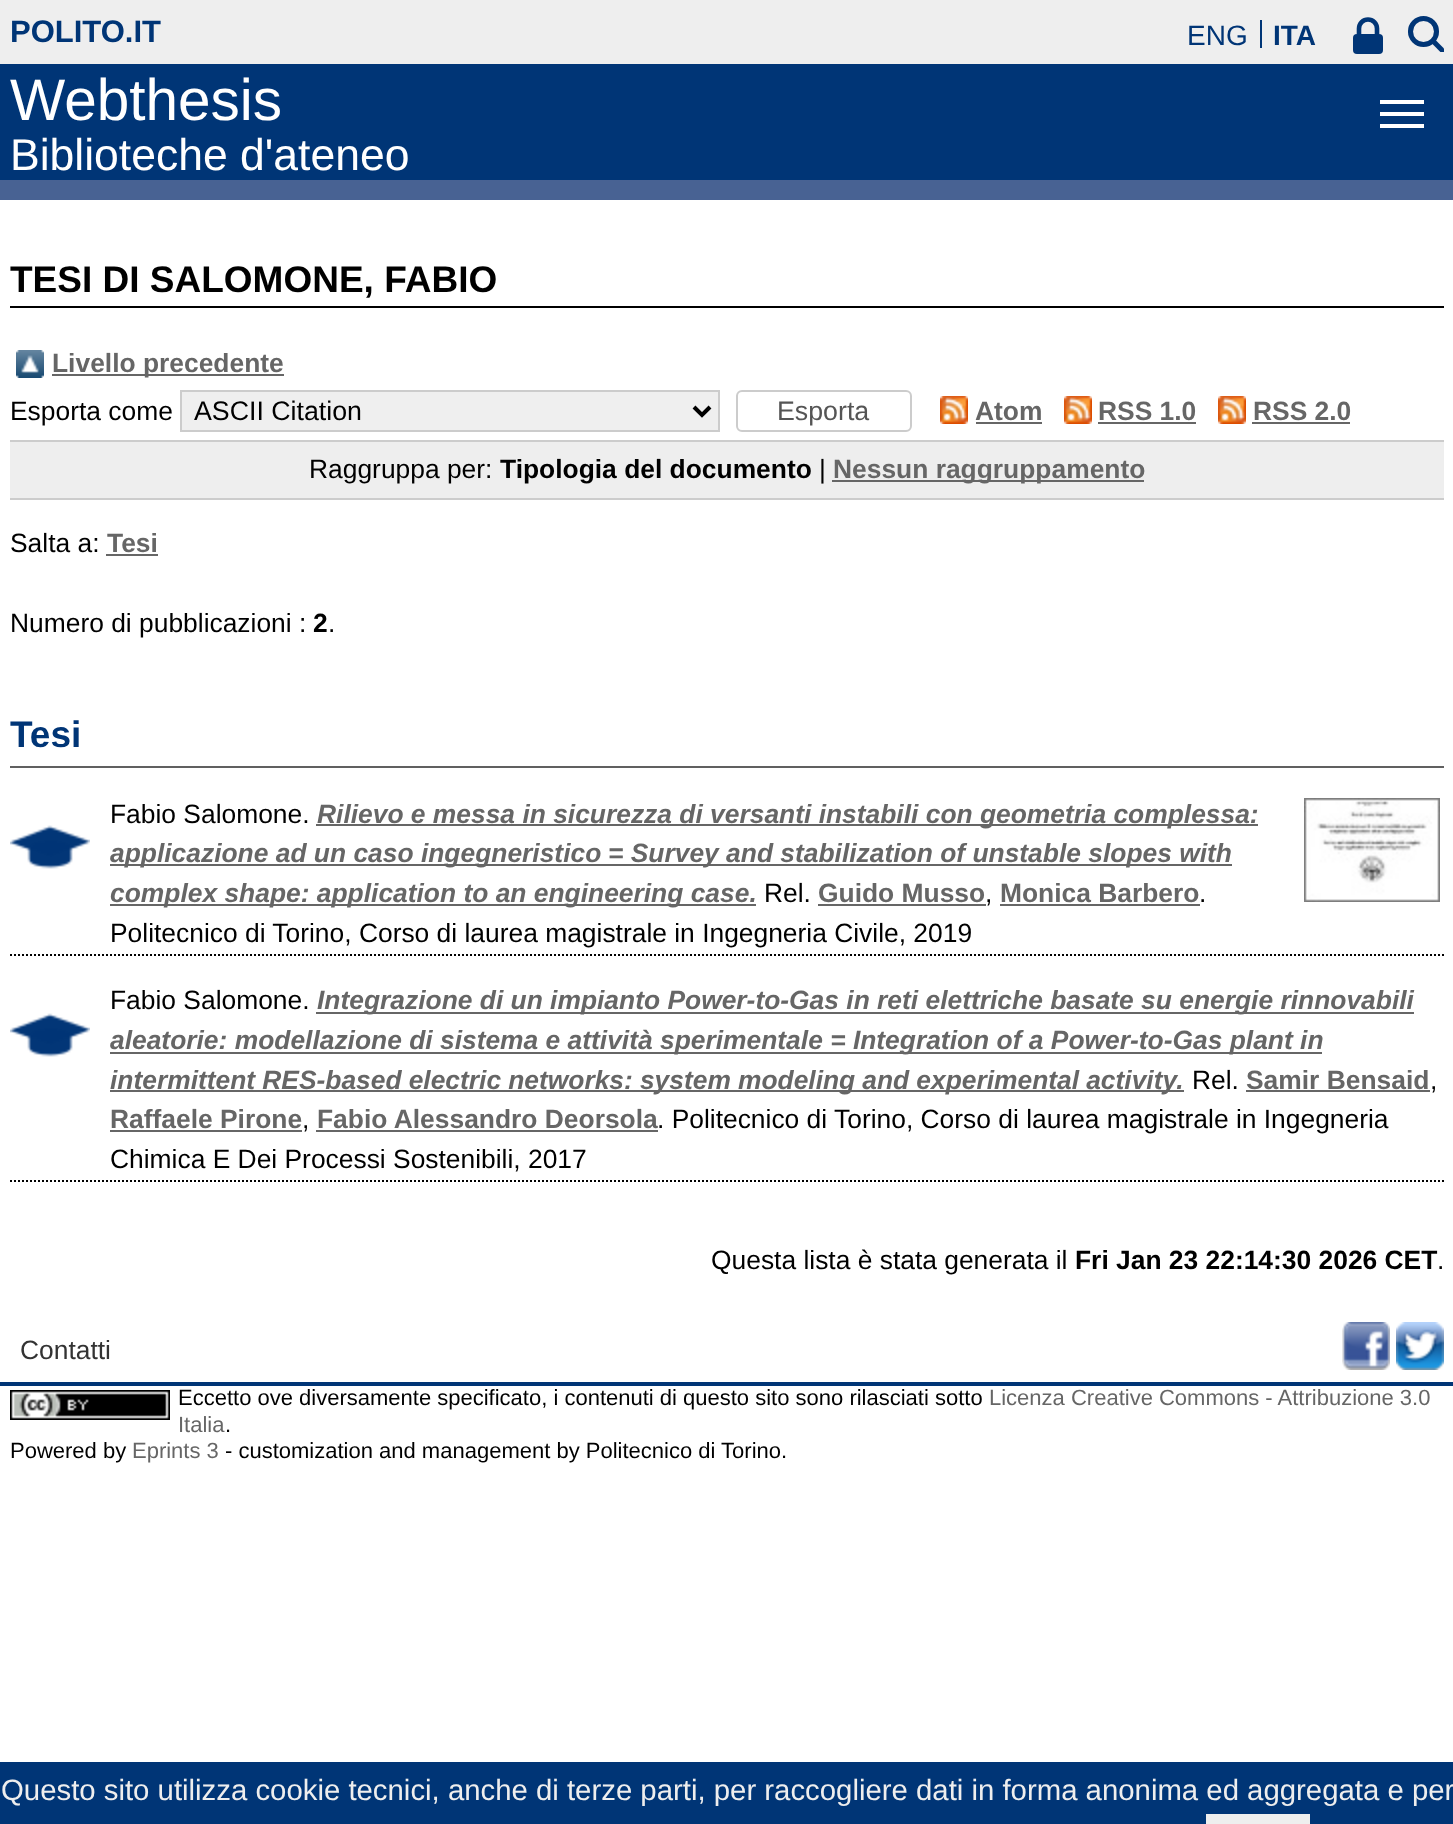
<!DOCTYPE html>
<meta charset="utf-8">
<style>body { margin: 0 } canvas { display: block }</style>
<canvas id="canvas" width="1453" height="1824"></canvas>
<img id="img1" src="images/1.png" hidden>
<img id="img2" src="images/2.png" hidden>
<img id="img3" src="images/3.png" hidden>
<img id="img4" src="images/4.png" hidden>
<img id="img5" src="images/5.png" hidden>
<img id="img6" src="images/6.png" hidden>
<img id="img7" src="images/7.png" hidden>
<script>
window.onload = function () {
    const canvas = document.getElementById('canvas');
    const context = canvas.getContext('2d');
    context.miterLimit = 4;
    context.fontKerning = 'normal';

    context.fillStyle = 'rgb(255, 255, 255)';
    context.fillRect(0, 0, 1453, 1824);
    context.fillStyle = 'rgb(238, 238, 238)';
    context.fillRect(0, 0, 1453, 64);
    context.fillStyle = 'rgb(0, 53, 118)';
    context.fillRect(1260, 20, 2, 28);
    context.beginPath();
    context.moveTo(1359, 34);
    context.lineTo(1359, 28.5);
    context.bezierCurveTo(1359, 23.5, 1363, 19.5, 1368, 19.5);
    context.bezierCurveTo(1373, 19.5, 1377, 23.5, 1377, 28.5);
    context.lineTo(1377, 34);
    context.strokeStyle = 'rgb(0, 53, 118)';
    context.lineWidth = 4.6;
    context.stroke();
    context.beginPath();
    context.roundRect(1353, 34, 30, 20, 4);
    context.fill();
    context.beginPath();
    context.arc(1423.5, 31.5, 13, 0, 2 * Math.PI);
    context.lineWidth = 5.1;
    context.stroke();
    context.save();
    context.beginPath();
    context.rect(1408, 16, 36, 36);
    context.clip();
    context.beginPath();
    context.moveTo(1433.5, 41.5);
    context.lineTo(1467, 75);
    context.stroke();
    context.restore();
    context.fillRect(0, 64, 1453, 116);
    context.fillStyle = 'rgb(255, 255, 255)';
    context.fillRect(1380, 100, 44, 4);
    context.fillRect(1380, 112, 44, 4);
    context.fillRect(1380, 124, 44, 4);
    context.fillStyle = 'rgb(72, 98, 147)';
    context.fillRect(0, 180, 1453, 20);
    context.fillStyle = 'rgb(0, 0, 0)';
    context.fillRect(10, 306, 1434, 2);
    context.drawImage(document.getElementById('img1'), 16, 350, 28, 28);
    context.fillStyle = 'rgb(102, 102, 102)';
    context.fillRect(52, 374, 232, 2);
    context.fillStyle = 'rgb(239, 239, 239)';
    context.beginPath();
    context.rect(181, 391, 538, 40);
    context.fill();
    context.strokeStyle = 'rgb(204, 204, 204)';
    context.lineWidth = 2;
    context.stroke();
    context.beginPath();
    context.moveTo(694, 407);
    context.lineTo(702, 415);
    context.lineTo(710, 407);
    context.strokeStyle = 'rgb(0, 0, 0)';
    context.lineWidth = 4;
    context.stroke();
    context.beginPath();
    context.roundRect(737, 391, 174, 40, 5);
    context.strokeStyle = 'rgb(204, 204, 204)';
    context.lineWidth = 2;
    context.stroke();
    context.drawImage(document.getElementById('img2'), 940, 396, 28, 28);
    context.fillStyle = 'rgb(102, 102, 102)';
    context.fillRect(976, 422, 66, 2);
    context.drawImage(document.getElementById('img2'), 1064, 396, 28, 28);
    context.fillRect(1098, 422, 98, 2);
    context.drawImage(document.getElementById('img2'), 1218, 396, 28, 28);
    context.fillRect(1252, 422, 98, 2);
    context.fillStyle = 'rgb(238, 238, 238)';
    context.fillRect(10, 442, 1434, 56);
    context.fillStyle = 'rgb(204, 204, 204)';
    context.fillRect(10, 440, 1434, 2);
    context.fillRect(10, 498, 1434, 2);
    context.fillStyle = 'rgb(102, 102, 102)';
    context.fillRect(832, 480, 312, 2);
    context.fillRect(106, 554, 52, 2);
    context.fillStyle = 'rgb(96, 96, 96)';
    context.fillRect(10, 766, 1434, 2);
    context.beginPath();
    context.moveTo(10, 955);
    context.lineTo(1444, 955);
    context.strokeStyle = 'rgb(0, 0, 0)';
    context.setLineDash([2, 2]);
    context.stroke();
    context.fillStyle = 'rgb(102, 102, 102)';
    context.fillRect(316, 824, 942, 2);
    context.drawImage(document.getElementById('img3'), 1304, 798, 136, 104);
    context.drawImage(document.getElementById('img4'), 10, 825, 80, 44);
    context.fillRect(110, 864, 1122, 2);
    context.fillRect(110, 904, 646, 2);
    context.fillRect(818, 904, 168, 2);
    context.fillRect(1000, 904, 200, 2);
    context.beginPath();
    context.moveTo(10, 1181);
    context.lineTo(1444, 1181);
    context.stroke();
    context.fillRect(316, 1012, 1098, 2);
    context.drawImage(document.getElementById('img4'), 10, 1013, 80, 44);
    context.fillRect(110, 1052, 1212, 2);
    context.fillRect(110, 1090, 1074, 2);
    context.fillRect(1246, 1090, 184, 2);
    context.fillRect(110, 1130, 192, 2);
    context.fillRect(316, 1130, 342, 2);
    context.drawImage(document.getElementById('img5'), 1342, 1322, 48, 48);
    context.drawImage(document.getElementById('img6'), 1396, 1322, 48, 48);
    context.fillStyle = 'rgb(0, 53, 118)';
    context.fillRect(0, 1382, 1453, 4);
    context.drawImage(document.getElementById('img7'), 10, 1390, 160, 30);
    context.fillRect(0, 1762, 1453, 62);
    context.fillStyle = 'rgb(238, 238, 238)';
    context.fillRect(1206, 1814, 104, 10);
    context.font = 'bold 31px Liberation Sans';
    context.fillStyle = 'rgb(0, 53, 118)';
    context.fillText('POLITO.IT', 10, 42);
    context.font = '28px Liberation Sans';
    context.fillText('ENG', 1187, 45);
    context.font = 'bold 28px Liberation Sans';
    context.fillText('ITA', 1273, 45);
    context.font = '58.5px Liberation Sans';
    context.fillStyle = 'rgb(255, 255, 255)';
    context.fillText('Webthesis', 10, 120);
    context.font = '44.5px Liberation Sans';
    context.fillText('Biblioteche d\'ateneo', 10, 170);
    context.font = 'bold 37px Liberation Sans';
    context.fillStyle = 'rgb(0, 0, 0)';
    context.fillText('TESI DI SALOMONE, FABIO', 10, 292);
    context.font = 'bold 26.4px Liberation Sans';
    context.fillStyle = 'rgb(102, 102, 102)';
    context.fillText('Livello precedente', 52, 372);
    context.font = '26.4px Liberation Sans';
    context.fillStyle = 'rgb(0, 0, 0)';
    context.fillText('Esporta come', 10, 420);
    context.font = '26.75px Liberation Sans';
    context.fillText('ASCII Citation', 194, 420);
    context.fillStyle = 'rgb(85, 85, 85)';
    context.fillText('Esporta', 777, 420);
    context.font = 'bold 26.4px Liberation Sans';
    context.fillStyle = 'rgb(102, 102, 102)';
    context.fillText('Atom', 975, 420);
    context.fillText('RSS 1.0', 1098, 420);
    context.fillText('RSS 2.0', 1253, 420);
    context.font = '26.4px Liberation Sans';
    context.fillStyle = 'rgb(0, 0, 0)';
    context.fillText('Raggruppa per:', 309, 478);
    context.font = 'bold 26.4px Liberation Sans';
    context.fillText('Tipologia del documento', 500, 478);
    context.font = '26.4px Liberation Sans';
    context.fillText('|', 819, 478);
    context.font = 'bold 26.4px Liberation Sans';
    context.fillStyle = 'rgb(102, 102, 102)';
    context.fillText('Nessun raggruppamento', 833, 478);
    context.font = '26.4px Liberation Sans';
    context.fillStyle = 'rgb(0, 0, 0)';
    context.fillText('Salta a:', 10, 552);
    context.font = 'bold 26.4px Liberation Sans';
    context.fillStyle = 'rgb(102, 102, 102)';
    context.fillText('Tesi', 107, 552);
    context.font = '26.4px Liberation Sans';
    context.fillStyle = 'rgb(0, 0, 0)';
    context.fillText('Numero di pubblicazioni :', 10, 632);
    context.font = 'bold 26.4px Liberation Sans';
    context.fillText('2', 313, 632);
    context.font = '26.4px Liberation Sans';
    context.fillText('.', 328, 632);
    context.font = 'bold 37px Liberation Sans';
    context.fillStyle = 'rgb(0, 53, 118)';
    context.fillText('Tesi', 10, 747);
    context.font = '26.4px Liberation Sans';
    context.fillStyle = 'rgb(0, 0, 0)';
    context.fillText('Fabio Salomone.', 110, 823);
    context.font = 'italic bold 26.4px Liberation Sans';
    context.fillStyle = 'rgb(102, 102, 102)';
    context.fillText('Rilievo e messa in sicurezza di versanti instabili con geometria complessa:', 317, 823);
    context.fillText('applicazione ad un caso ingegneristico', 110, 862);
    context.fillText('= Survey and stabilization of unstable slopes with', 608, 862);
    context.fillText('complex shape: application to an engineering case.', 110, 902);
    context.font = '26.4px Liberation Sans';
    context.fillStyle = 'rgb(0, 0, 0)';
    context.fillText('Rel.', 764, 902);
    context.font = 'bold 26.4px Liberation Sans';
    context.fillStyle = 'rgb(102, 102, 102)';
    context.fillText('Guido Musso', 818, 902);
    context.font = '26.4px Liberation Sans';
    context.fillStyle = 'rgb(0, 0, 0)';
    context.fillText(',', 985, 902);
    context.font = 'bold 26.4px Liberation Sans';
    context.fillStyle = 'rgb(102, 102, 102)';
    context.fillText('Monica Barbero', 1000, 902);
    context.font = '26.4px Liberation Sans';
    context.fillStyle = 'rgb(0, 0, 0)';
    context.fillText('.', 1199, 902);
    context.fillText('Politecnico di Torino, Corso di laurea magistrale in Ingegneria Civile, 2019', 110, 942);
    context.fillText('Fabio Salomone.', 110, 1009);
    context.font = 'italic bold 26.4px Liberation Sans';
    context.fillStyle = 'rgb(102, 102, 102)';
    context.fillText('Integrazione di un impianto Power-to-Gas in reti elettriche basate su energie rinnovabili', 317, 1009);
    context.fillText('aleatorie: modellazione di sistema e attività sperimentale = Integration of a Power-to-Gas plant in', 110, 1049);
    context.wordSpacing = '-0.25px';
    context.fillText('intermittent RES-based electric networks: system modeling and experimental activity.', 110, 1089);
    context.wordSpacing = '0px';
    context.font = '26.4px Liberation Sans';
    context.fillStyle = 'rgb(0, 0, 0)';
    context.fillText('Rel.', 1192, 1089);
    context.font = 'bold 26.4px Liberation Sans';
    context.fillStyle = 'rgb(102, 102, 102)';
    context.fillText('Samir Bensaid', 1246, 1089);
    context.font = '26.4px Liberation Sans';
    context.fillStyle = 'rgb(0, 0, 0)';
    context.fillText(',', 1430, 1089);
    context.font = 'bold 26.4px Liberation Sans';
    context.fillStyle = 'rgb(102, 102, 102)';
    context.fillText('Raffaele Pirone', 110, 1128);
    context.font = '26.4px Liberation Sans';
    context.fillStyle = 'rgb(0, 0, 0)';
    context.fillText(',', 302, 1128);
    context.font = 'bold 26.4px Liberation Sans';
    context.fillStyle = 'rgb(102, 102, 102)';
    context.fillText('Fabio Alessandro Deorsola', 317, 1128);
    context.font = '26.4px Liberation Sans';
    context.fillStyle = 'rgb(0, 0, 0)';
    context.fillText('. Politecnico di Torino, Corso di laurea magistrale in Ingegneria', 657, 1128);
    context.fillText('Chimica E Dei Processi Sostenibili, 2017', 110, 1168);
    context.fillText('Questa lista è stata generata il', 711, 1269);
    context.font = 'bold 26.4px Liberation Sans';
    context.fillText('Fri Jan 23 22:14:30 2026 CET', 1075, 1269);
    context.font = '26.4px Liberation Sans';
    context.fillText('.', 1437, 1269);
    context.fillStyle = 'rgb(51, 51, 51)';
    context.fillText('Contatti', 20, 1359);
    context.font = '22px Liberation Sans';
    context.fillStyle = 'rgb(0, 0, 0)';
    context.fillText('Eccetto ove diversamente specificato, i contenuti di questo sito sono rilasciati sotto', 178, 1405);
    context.fillStyle = 'rgb(102, 102, 102)';
    context.fillText('Licenza Creative Commons - Attribuzione 3.0', 989, 1405);
    context.fillText('Italia', 178, 1432);
    context.fillStyle = 'rgb(0, 0, 0)';
    context.fillText('.', 225, 1432);
    context.fillText('Powered by', 10, 1458);
    context.fillStyle = 'rgb(102, 102, 102)';
    context.fillText('Eprints 3', 132, 1458);
    context.fillStyle = 'rgb(0, 0, 0)';
    context.fillText('- customization and management by Politecnico di Torino.', 225, 1458);
    context.font = '29.35px Liberation Sans';
    context.fillStyle = 'rgb(238, 238, 238)';
    context.fillText('Questo sito utilizza cookie tecnici, anche di terze parti, per raccogliere dati in forma anonima ed aggregata e per', 1, 1800);
};
</script>
